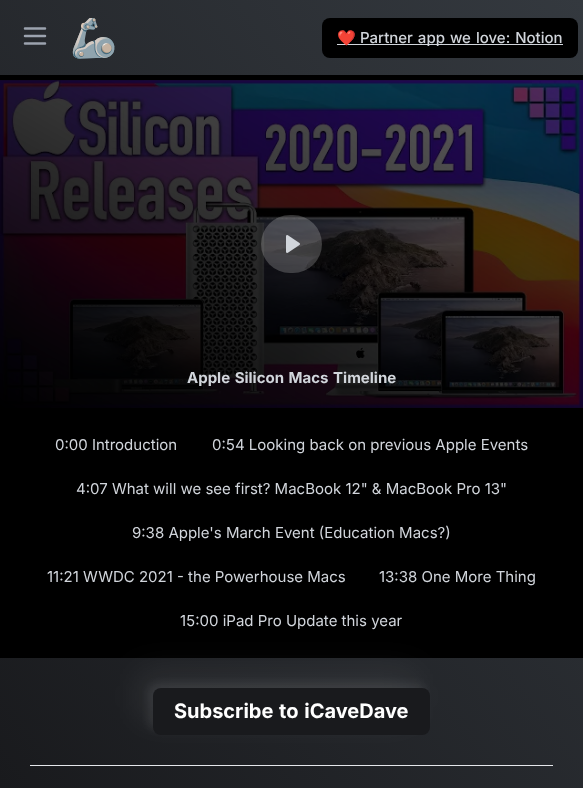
<!DOCTYPE html>
<meta charset="utf-8">
<style>body { margin: 0 } canvas { display: block }</style>
<canvas id="canvas" width="583" height="788"></canvas>
<img id="img1" src="images/1.png" hidden>
<img id="img2" src="images/2.png" hidden>
<script>
window.onload = function () {
    const canvas = document.getElementById('canvas');
    const context = canvas.getContext('2d');
    context.miterLimit = 4;
    context.fontKerning = 'normal';
    let gradient;

    context.fillStyle = 'rgb(255, 255, 255)';
    context.fillRect(0, 0, 583, 788);
    gradient = context.createLinearGradient(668, 115, -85, 673);
    gradient.addColorStop(0, 'rgb(52, 57, 63)');
    gradient.addColorStop(1, 'rgb(25, 26, 29)');
    context.fillStyle = gradient;
    context.fillRect(0, 658, 583, 130);
    context.fillRect(0, 0, 583, 75);
    context.beginPath();
    context.moveTo(25, 28.5);
    context.lineTo(45, 28.5);
    context.moveTo(25, 36);
    context.lineTo(45, 36);
    context.moveTo(25, 43.5);
    context.lineTo(45, 43.5);
    context.strokeStyle = 'rgb(156, 163, 175)';
    context.lineWidth = 2.5;
    context.lineCap = 'round';
    context.lineJoin = 'round';
    context.stroke();
    context.fillStyle = 'rgb(0, 0, 0)';
    context.beginPath();
    context.roundRect(322, 18, 256, 40, 8);
    context.fill();
    context.fillStyle = 'rgb(209, 213, 219)';
    context.fillRect(337, 44, 226, 1);
    context.fillStyle = 'rgb(0, 0, 0)';
    context.fillRect(0, 75, 583, 583);
    context.drawImage(document.getElementById('img1'), 0, 80, 583, 328);
    context.fillStyle = 'rgba(255, 255, 255, 0.2)';
    context.beginPath();
    context.roundRect(261, 215, 61, 58, 29);
    context.fill();
    context.drawImage(document.getElementById('img2'), 286, 235, 14, 18);
    context.fillStyle = 'rgb(229, 231, 235)';
    context.fillRect(30, 765, 523, 1);
    context.fillStyle = 'rgba(255, 255, 255, 0.07)';
    context.filter = 'blur(17.5px)';
    context.beginPath();
    context.roundRect(138, 673, 277, 47, 8);
    context.fill();
    context.filter = 'none';
    context.filter = 'blur(5px)';
    context.beginPath();
    context.roundRect(148, 683, 277, 47, 8);
    context.fill();
    context.filter = 'none';
    context.fillStyle = 'rgb(25, 26, 29)';
    context.beginPath();
    context.roundRect(153, 688, 277, 47, 8);
    context.fill();
    context.font = '38px Noto Color Emoji';
    context.fillStyle = 'rgb(209, 213, 219)';
    context.fillText('🦾', 70, 51);
    context.font = '15px Noto Color Emoji';
    context.fillText('❤️', 337, 43);
    context.wordSpacing = '1px';
    context.font = '500 15px Inter';
    context.fillText('Partner app we love: Notion', 360, 43);
    context.font = 'bold 15px Inter';
    context.fillText('Apple Silicon Macs Timeline', 187, 383);
    context.wordSpacing = '0px';
    context.font = '15px Inter';
    context.fillText('0:00 Introduction', 55, 450);
    context.fillText('0:54 Looking back on previous Apple Events', 212, 450);
    context.fillText('4:07 What will we see first? MacBook 12" & MacBook Pro 13"', 76, 494);
    context.fillText('9:38 Apple\'s March Event (Education Macs?)', 132, 538);
    context.fillText('11:21 WWDC 2021 - the Powerhouse Macs', 47, 582);
    context.fillText('13:38 One More Thing', 379, 582);
    context.fillText('15:00 iPad Pro Update this year', 180, 626);
    context.wordSpacing = '1px';
    context.font = 'bold 20px Inter';
    context.fillStyle = 'rgb(255, 255, 255)';
    context.fillText('Subscribe to iCaveDave', 174, 718);
};
</script>
